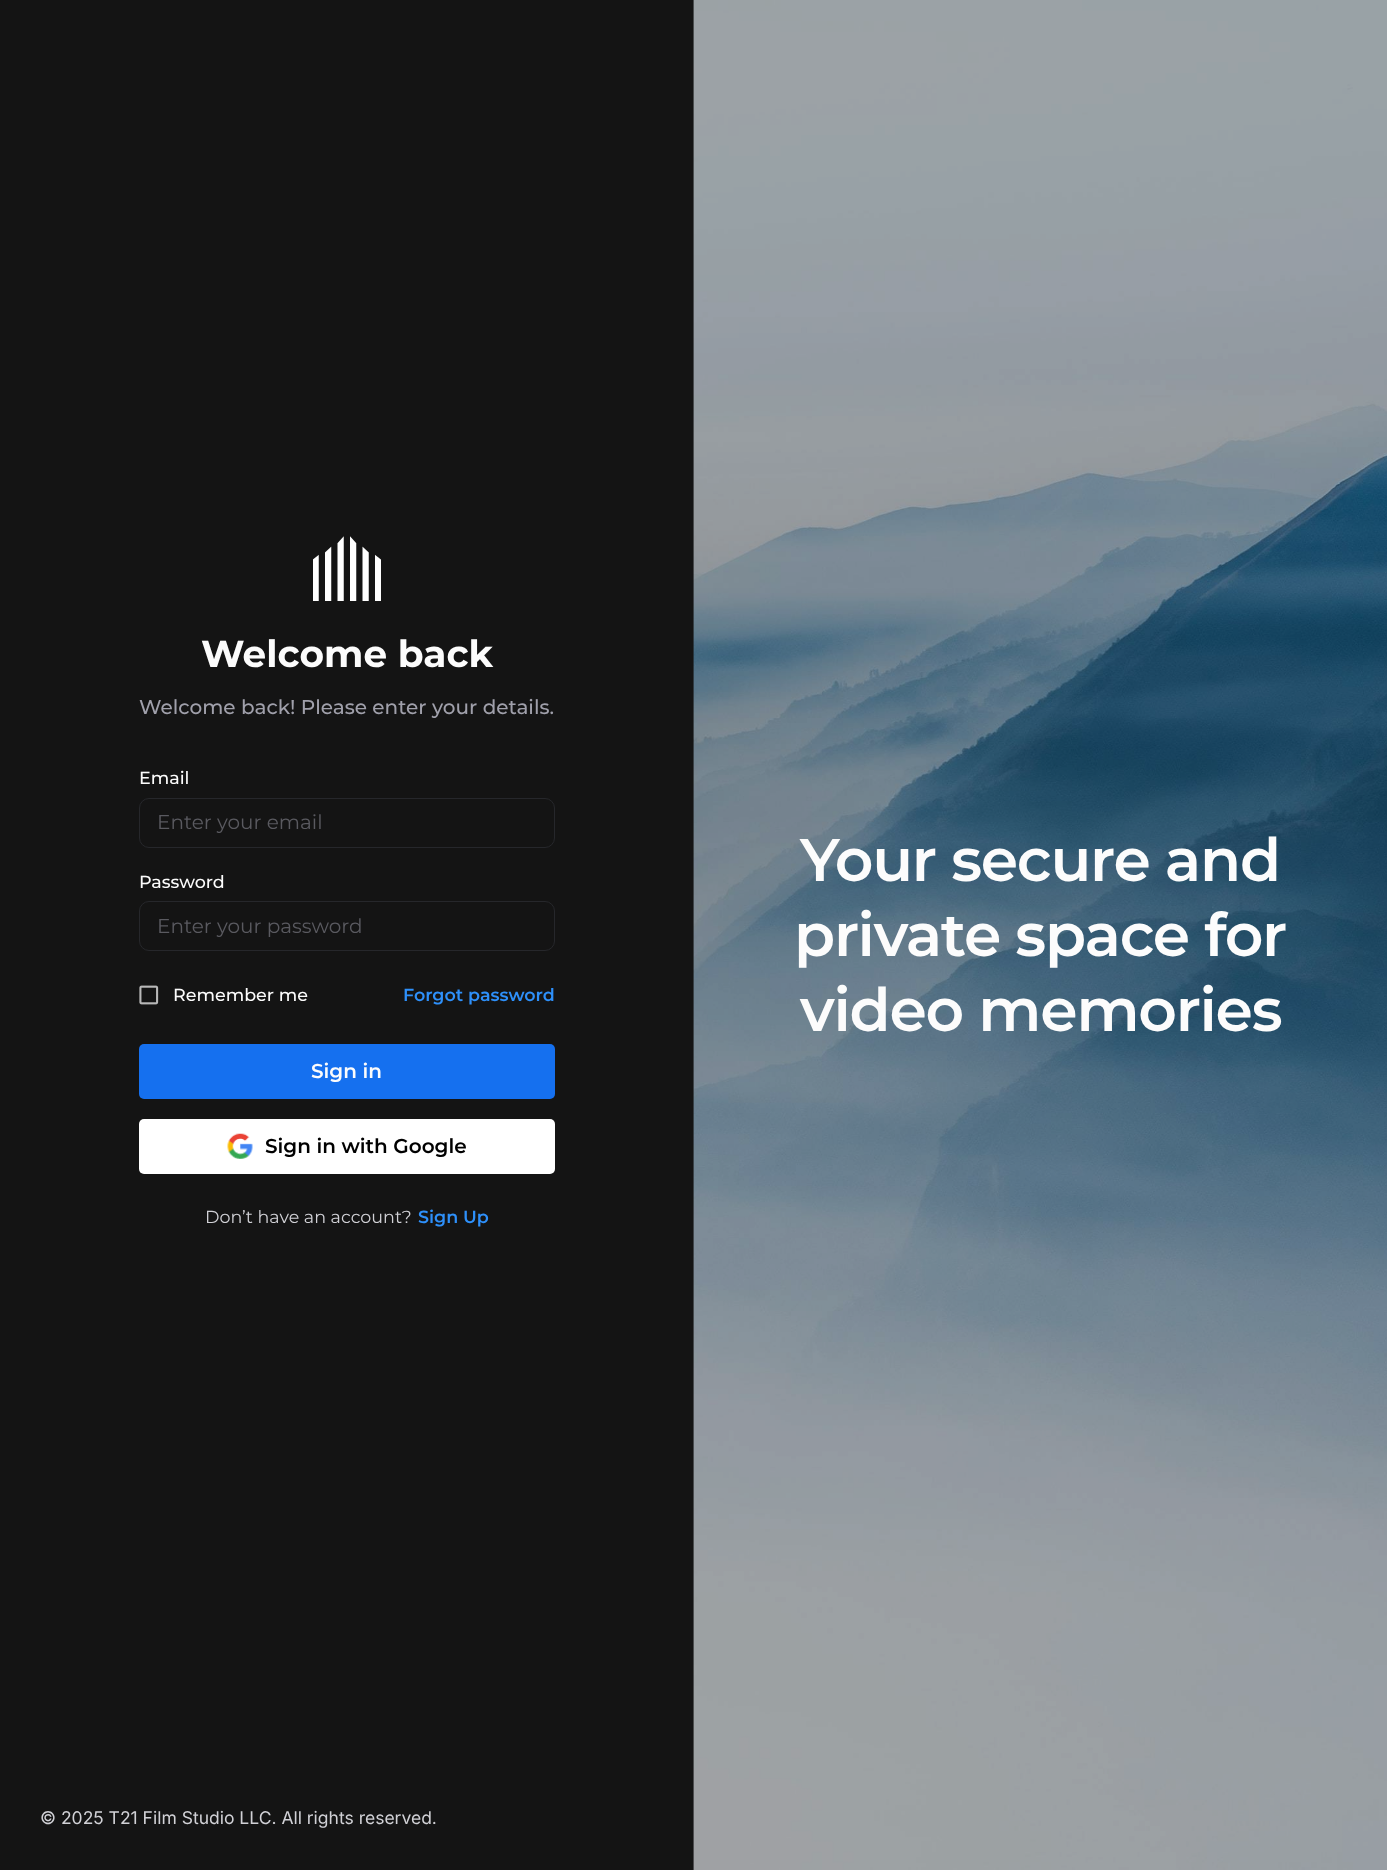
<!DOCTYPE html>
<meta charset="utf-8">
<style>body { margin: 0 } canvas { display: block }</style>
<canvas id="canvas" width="1387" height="1870"></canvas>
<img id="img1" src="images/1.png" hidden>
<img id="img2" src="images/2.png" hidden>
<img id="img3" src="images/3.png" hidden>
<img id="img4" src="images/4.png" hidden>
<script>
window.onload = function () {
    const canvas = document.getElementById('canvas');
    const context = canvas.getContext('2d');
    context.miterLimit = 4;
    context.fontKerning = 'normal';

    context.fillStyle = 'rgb(20, 20, 20)';
    context.fillRect(0, 0, 1387, 1870);
    context.drawImage(document.getElementById('img1'), 313, 536, 68, 65);
    context.beginPath();
    context.roundRect(139.5, 798.5, 415, 49, 9.5);
    context.strokeStyle = 'rgb(38, 39, 43)';
    context.stroke();
    context.beginPath();
    context.roundRect(139.5, 901.5, 415, 49, 9.5);
    context.stroke();
    context.drawImage(document.getElementById('img2'), 139, 985, 20, 20);
    context.fillStyle = 'rgb(21, 112, 239)';
    context.beginPath();
    context.roundRect(139, 1044, 416, 55, 5);
    context.fill();
    context.fillStyle = 'rgb(255, 255, 255)';
    context.beginPath();
    context.roundRect(139, 1119, 416, 55, 5);
    context.fill();
    context.drawImage(document.getElementById('img3'), 227, 1133, 26, 26);
    context.drawImage(document.getElementById('img4'), 693, 0, 694, 1870);
    context.font = 'bold 37.5px Montserrat';
    context.fillStyle = 'rgb(252, 252, 252)';
    context.fillText('Welcome back', 201, 667);
    context.font = '500 20px Montserrat';
    context.fillStyle = 'rgb(160, 160, 171)';
    context.fillText('Welcome back! Please enter your details.', 139, 714);
    context.font = '500 17.5px Montserrat';
    context.fillStyle = 'rgb(252, 252, 252)';
    context.fillText('Email', 139, 784);
    context.font = '20px Montserrat';
    context.fillStyle = 'rgb(90, 90, 96)';
    context.fillText('Enter your email', 157, 829);
    context.font = '500 17.5px Montserrat';
    context.fillStyle = 'rgb(252, 252, 252)';
    context.fillText('Password', 139, 888);
    context.font = '20px Montserrat';
    context.fillStyle = 'rgb(90, 90, 96)';
    context.fillText('Enter your password', 157, 933);
    context.font = '500 17.5px Montserrat';
    context.fillStyle = 'rgb(252, 252, 252)';
    context.fillText('Remember me', 173, 1001);
    context.font = '600 17.5px Montserrat';
    context.fillStyle = 'rgb(46, 144, 250)';
    context.fillText('Forgot password', 403, 1001);
    context.font = '600 20px Montserrat';
    context.fillStyle = 'rgb(252, 252, 252)';
    context.fillText('Sign in', 311, 1078);
    context.fillStyle = 'rgb(0, 0, 0)';
    context.fillText('Sign in with Google', 265, 1153);
    context.font = '17.5px Montserrat';
    context.fillStyle = 'rgb(209, 209, 214)';
    context.fillText('Don’t have an account?', 205, 1223);
    context.font = '600 17.5px Montserrat';
    context.fillStyle = 'rgb(46, 144, 250)';
    context.fillText('Sign Up', 418, 1223);
    context.font = '17.5px Inter';
    context.fillStyle = 'rgb(209, 209, 214)';
    context.fillText('© 2025 T21 Film Studio LLC. All rights reserved.', 40, 1824);
    context.letterSpacing = '-1.25px';
    context.font = '600 60px Montserrat';
    context.fillStyle = 'rgb(252, 252, 252)';
    context.fillText('Your secure and', 800, 881);
    context.fillText('private space for', 794, 956);
    context.fillText('video memories', 800, 1031);
};
</script>
